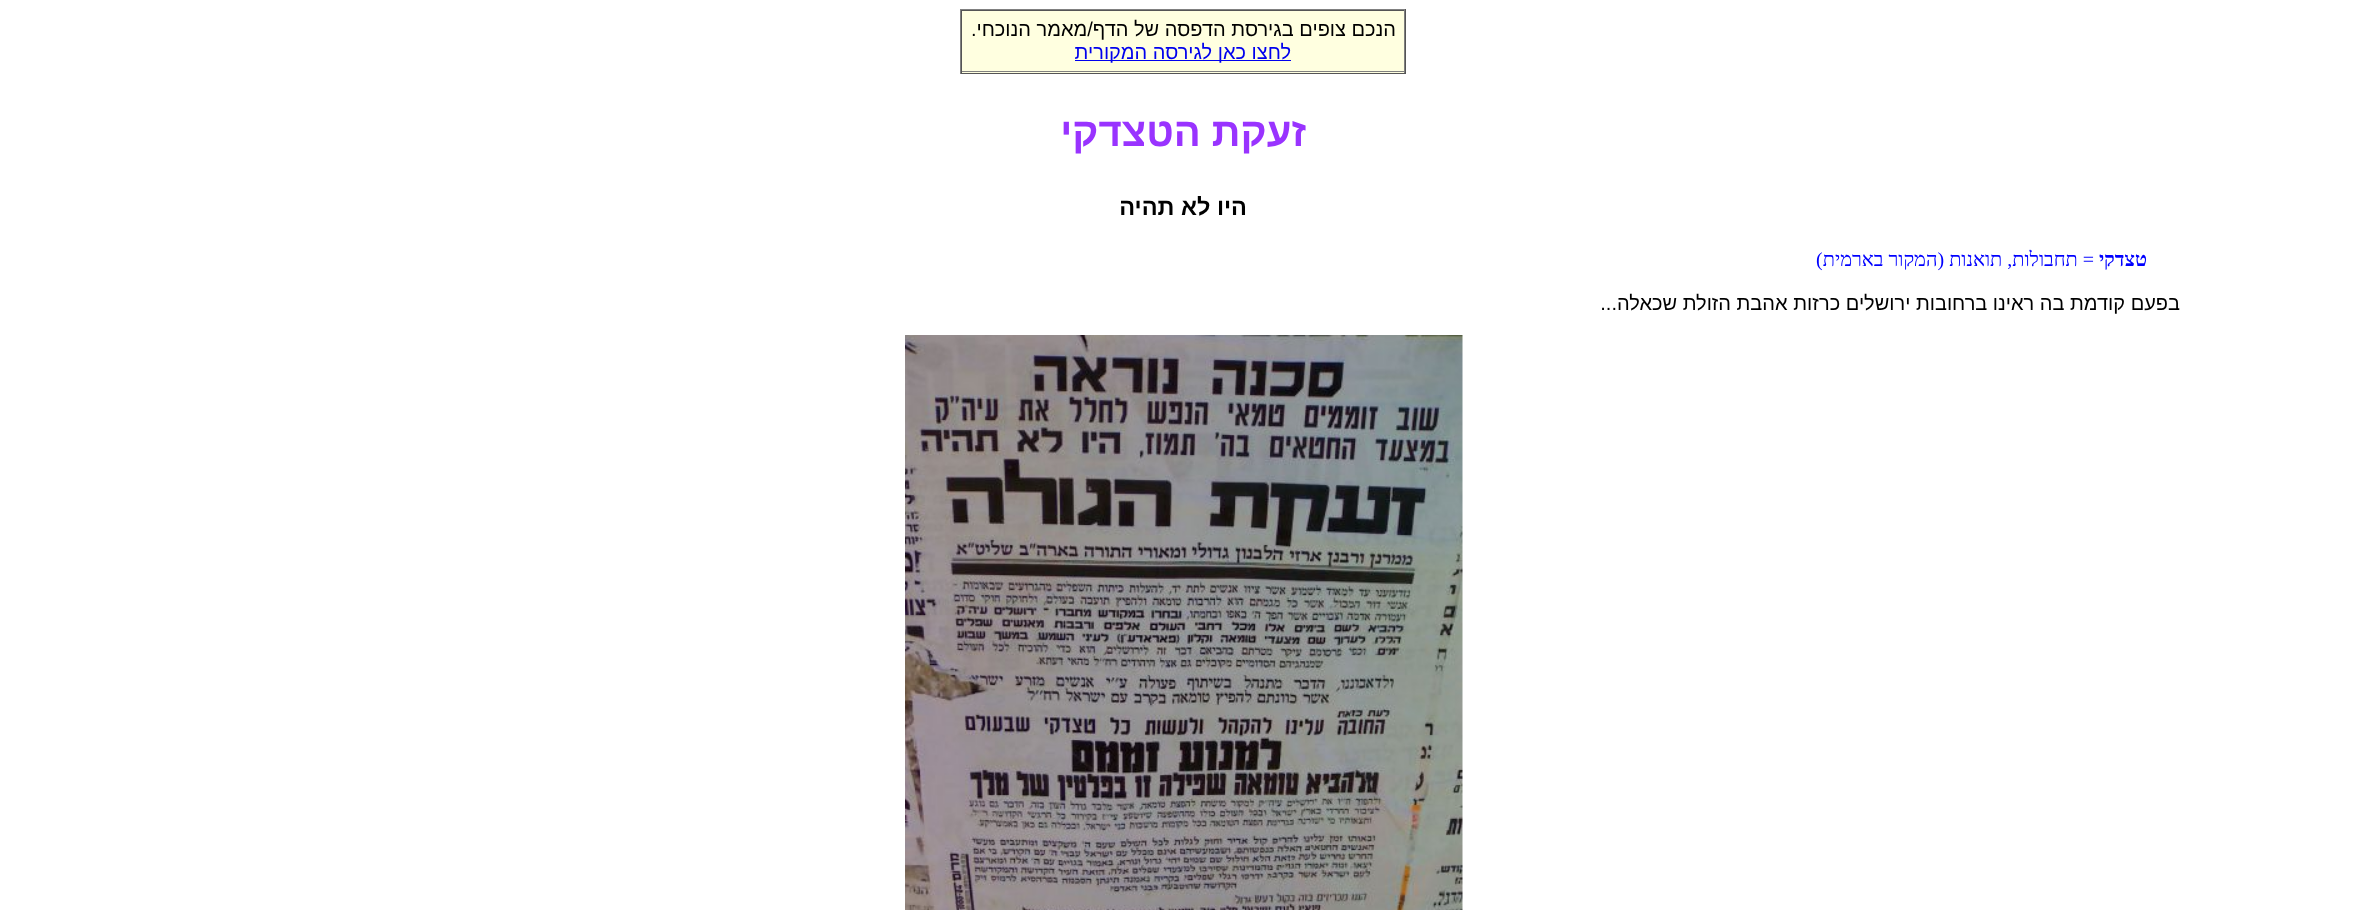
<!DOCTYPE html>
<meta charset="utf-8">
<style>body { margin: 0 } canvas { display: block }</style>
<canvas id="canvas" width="2366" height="910"></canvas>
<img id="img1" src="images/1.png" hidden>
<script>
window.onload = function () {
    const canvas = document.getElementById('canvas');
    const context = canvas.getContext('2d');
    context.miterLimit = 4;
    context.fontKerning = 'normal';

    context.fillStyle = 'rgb(255, 255, 255)';
    context.fillRect(0, 0, 2366, 910);
    context.fillStyle = 'rgb(128, 128, 128)';
    context.fillRect(960, 9, 446, 1);
    context.fillStyle = 'rgb(85, 85, 85)';
    context.fillRect(1405, 9, 1, 65);
    context.fillRect(960, 73, 446, 1);
    context.fillStyle = 'rgb(128, 128, 128)';
    context.fillRect(960, 9, 1, 65);
    context.fillStyle = 'rgb(255, 255, 224)';
    context.fillRect(962, 11, 442, 62);
    context.fillStyle = 'rgb(85, 85, 85)';
    context.fillRect(961, 10, 444, 1);
    context.fillStyle = 'rgb(128, 128, 128)';
    context.fillRect(1404, 10, 1, 63);
    context.fillRect(961, 71, 444, 1);
    context.fillStyle = 'rgb(85, 85, 85)';
    context.fillRect(961, 10, 1, 63);
    context.fillStyle = 'rgb(0, 0, 238)';
    context.fillRect(1075, 60, 216, 1);
    context.drawImage(document.getElementById('img1'), 905, 335, 558, 575);
    context.direction = 'rtl';
    context.font = '20px Liberation Sans';
    context.fillStyle = 'rgb(0, 0, 0)';
    context.fillText('הנכם צופים בגירסת הדפסה של הדף/מאמר הנוכחי.', 1396, 36);
    context.fillStyle = 'rgb(0, 0, 238)';
    context.fillText('לחצו כאן לגירסה המקורית', 1291, 59);
    context.font = 'bold 40px Liberation Sans';
    context.fillStyle = 'rgb(153, 51, 255)';
    context.fillText('זעקת הטצדקי', 1306, 146);
    context.font = 'bold 23.5px Liberation Sans';
    context.fillStyle = 'rgb(0, 0, 0)';
    context.fillText('היו לא תהיה', 1247, 215);
    context.font = 'bold 20px Liberation Serif';
    context.fillStyle = 'rgb(0, 0, 255)';
    context.fillText('טצדקי', 2147, 266);
    context.font = '20px Liberation Serif';
    context.fillText('= תחבולות, תואנות (המקור בארמית)', 2094, 266);
    context.font = '20px Liberation Sans';
    context.fillStyle = 'rgb(0, 0, 0)';
    context.fillText('בפעם קודמת בה ראינו ברחובות ירושלים כרזות אהבת הזולת שכאלה...', 2180, 310);
};
</script>
